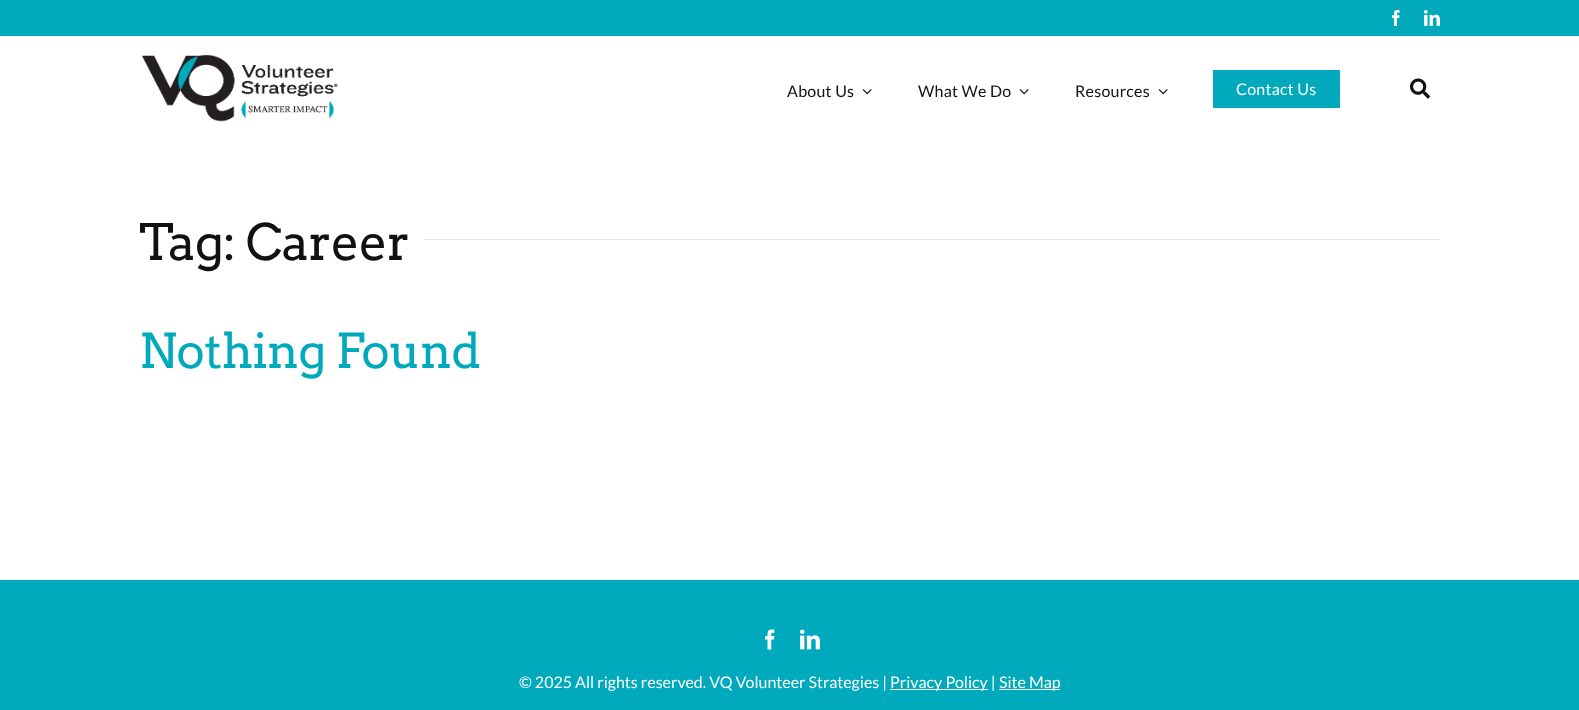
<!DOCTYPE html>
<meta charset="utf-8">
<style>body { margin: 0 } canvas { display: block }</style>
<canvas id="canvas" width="1579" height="710"></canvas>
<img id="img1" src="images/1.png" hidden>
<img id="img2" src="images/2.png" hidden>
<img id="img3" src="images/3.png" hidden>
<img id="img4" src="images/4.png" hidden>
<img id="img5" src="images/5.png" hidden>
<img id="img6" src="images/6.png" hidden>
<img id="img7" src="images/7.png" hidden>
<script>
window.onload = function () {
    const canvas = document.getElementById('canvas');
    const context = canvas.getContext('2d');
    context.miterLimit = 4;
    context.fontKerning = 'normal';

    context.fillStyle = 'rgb(255, 255, 255)';
    context.fillRect(0, 0, 1579, 710);
    context.fillStyle = 'rgb(1, 169, 188)';
    context.fillRect(0, 0, 1579, 36);
    context.drawImage(document.getElementById('img1'), 1392, 10, 8, 16);
    context.drawImage(document.getElementById('img2'), 1424, 10, 16, 16);
    context.drawImage(document.getElementById('img3'), 141, 54, 197, 68);
    context.drawImage(document.getElementById('img4'), 862, 89, 10, 6);
    context.drawImage(document.getElementById('img4'), 1019, 89, 10, 6);
    context.drawImage(document.getElementById('img4'), 1158, 89, 10, 6);
    context.fillRect(1213, 70, 127, 38);
    context.drawImage(document.getElementById('img5'), 1410, 78, 20, 21);
    context.fillStyle = 'rgb(230, 230, 230)';
    context.fillRect(425, 239, 1015, 1);
    context.fillStyle = 'rgb(1, 169, 188)';
    context.fillRect(0, 580, 1579, 130);
    context.drawImage(document.getElementById('img6'), 765, 629, 10, 21);
    context.drawImage(document.getElementById('img7'), 800, 629, 20, 21);
    context.fillStyle = 'rgb(255, 255, 255)';
    context.fillRect(890, 689, 98, 1);
    context.fillRect(999, 689, 61, 1);
    context.letterSpacing = '0.25px';
    context.font = '16px Lato';
    context.fillStyle = 'rgb(17, 17, 17)';
    context.fillText('About Us', 787, 97);
    context.fillText('What We Do', 918, 97);
    context.fillText('Resources', 1075, 97);
    context.fillStyle = 'rgb(255, 255, 255)';
    context.fillText('Contact Us', 1236, 95);
    context.letterSpacing = '-0.75px';
    context.font = '50px Arvo';
    context.fillStyle = 'rgb(17, 17, 17)';
    context.fillText('Tag: Career', 139, 260);
    context.font = '48px Arvo';
    context.fillStyle = 'rgb(1, 169, 188)';
    context.fillText('Nothing Found', 139, 368);
    context.letterSpacing = '0px';
    context.font = '16px Lato';
    context.fillStyle = 'rgb(255, 255, 255)';
    context.fillText('© 2025 All rights reserved. VQ Volunteer Strategies |', 519, 688);
    context.fillText('Privacy Policy |', 890, 688);
    context.fillText('Site Map', 999, 688);
};
</script>
